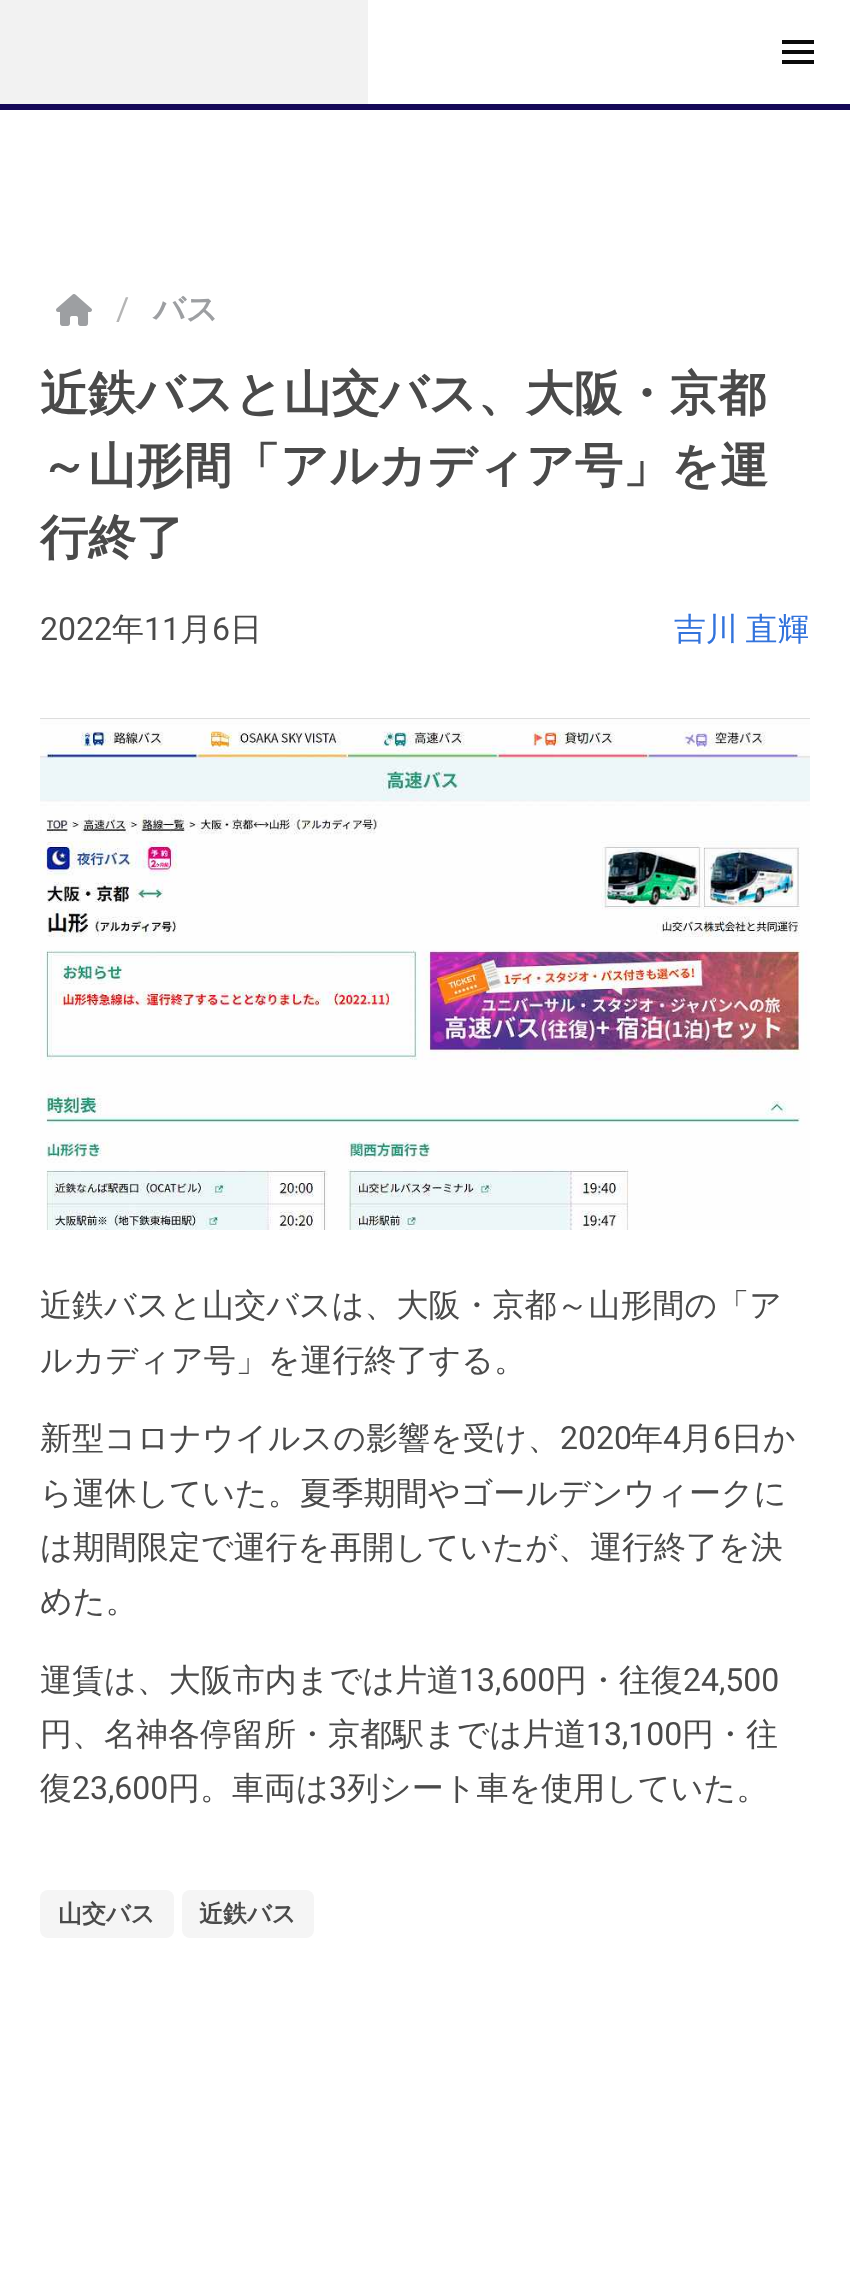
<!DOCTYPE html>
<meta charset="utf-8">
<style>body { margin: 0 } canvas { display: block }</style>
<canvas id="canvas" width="850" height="2273"></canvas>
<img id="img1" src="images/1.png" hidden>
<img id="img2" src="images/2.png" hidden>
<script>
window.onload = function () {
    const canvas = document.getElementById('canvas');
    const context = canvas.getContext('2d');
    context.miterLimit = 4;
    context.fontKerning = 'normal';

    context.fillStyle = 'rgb(255, 255, 255)';
    context.fillRect(0, 0, 850, 2273);
    context.fillStyle = 'rgb(21, 9, 88)';
    context.fillRect(0, 104, 850, 6);
    context.fillStyle = 'rgb(242, 242, 242)';
    context.fillRect(0, 0, 368, 104);
    context.fillStyle = 'rgb(10, 10, 10)';
    context.fillRect(782, 40, 32, 4);
    context.fillRect(782, 50, 32, 4);
    context.fillRect(782, 60, 32, 4);
    context.drawImage(document.getElementById('img1'), 56, 294, 36, 32);
    context.drawImage(document.getElementById('img2'), 40, 718, 770, 512);
    context.fillStyle = 'rgb(245, 245, 245)';
    context.beginPath();
    context.roundRect(40, 1890, 134, 48, 8);
    context.fill();
    context.beginPath();
    context.roundRect(182, 1890, 132, 48, 8);
    context.fill();
    context.font = '32px Roboto';
    context.fillStyle = 'rgb(181, 181, 181)';
    context.fillText('/', 116, 320);
    context.font = 'bold 32px WenQuanYi Zen Hei';
    context.fillStyle = 'rgb(157, 159, 162)';
    context.fillText('バス', 153, 320);
    context.font = 'bold 48px WenQuanYi Zen Hei';
    context.fillStyle = 'rgb(74, 74, 74)';
    context.fillText('近鉄バスと山交バス、大阪・京都', 40, 410);
    context.fillText('～山形間「アルカディア号」を運', 40, 482);
    context.fillText('行終了', 40, 554);
    context.font = '32px Roboto';
    context.fillText('2022', 40, 640);
    context.font = '500 32px WenQuanYi Zen Hei';
    context.fillText('年', 112, 640);
    context.font = '32px Roboto';
    context.fillText('11', 144, 640);
    context.font = '500 32px WenQuanYi Zen Hei';
    context.fillText('月', 180, 640);
    context.font = '32px Roboto';
    context.fillText('6', 212, 640);
    context.font = '500 32px WenQuanYi Zen Hei';
    context.fillText('日', 230, 640);
    context.wordSpacing = '-2px';
    context.fillStyle = 'rgb(50, 115, 220)';
    context.fillText('吉川 直輝', 674, 640);
    context.wordSpacing = '0px';
    context.fillStyle = 'rgb(74, 74, 74)';
    context.fillText('近鉄バスと山交バスは、大阪・京都～山形間の「ア', 40, 1316);
    context.fillText('ルカディア号」を運行終了する。', 40, 1371);
    context.fillText('新型コロナウイルスの影響を受け、', 40, 1449);
    context.font = '32px Roboto';
    context.fillText('2020', 560, 1449);
    context.font = '500 32px WenQuanYi Zen Hei';
    context.fillText('年', 631, 1449);
    context.font = '32px Roboto';
    context.fillText('4', 663, 1449);
    context.font = '500 32px WenQuanYi Zen Hei';
    context.fillText('月', 681, 1449);
    context.font = '32px Roboto';
    context.fillText('6', 713, 1449);
    context.font = '500 32px WenQuanYi Zen Hei';
    context.fillText('日か', 731, 1449);
    context.fillText('ら運休していた。夏季期間やゴールデンウィークに', 40, 1504);
    context.fillText('は期間限定で運行を再開していたが、運行終了を決', 40, 1558);
    context.fillText('めた。', 40, 1612);
    context.fillText('運賃は、大阪市内までは片道', 40, 1691);
    context.font = '32px Roboto';
    context.fillText('13,600', 459, 1691);
    context.font = '500 32px WenQuanYi Zen Hei';
    context.fillText('円・往復', 555, 1691);
    context.font = '32px Roboto';
    context.fillText('24,500', 683, 1691);
    context.font = '500 32px WenQuanYi Zen Hei';
    context.fillText('円、名神各停留所・京都駅までは片道', 40, 1745);
    context.font = '32px Roboto';
    context.fillText('13,100', 586, 1745);
    context.font = '500 32px WenQuanYi Zen Hei';
    context.fillText('円・往', 682, 1745);
    context.fillText('復', 40, 1799);
    context.font = '32px Roboto';
    context.fillText('23,600', 72, 1799);
    context.font = '500 32px WenQuanYi Zen Hei';
    context.fillText('円。車両は', 168, 1799);
    context.font = '32px Roboto';
    context.fillText('3', 329, 1799);
    context.font = '500 32px WenQuanYi Zen Hei';
    context.fillText('列シート車を使用していた。', 347, 1799);
    context.font = 'bold 24px WenQuanYi Zen Hei';
    context.fillText('山交バス', 58, 1922);
    context.fillText('近鉄バス', 199, 1922);
};
</script>
